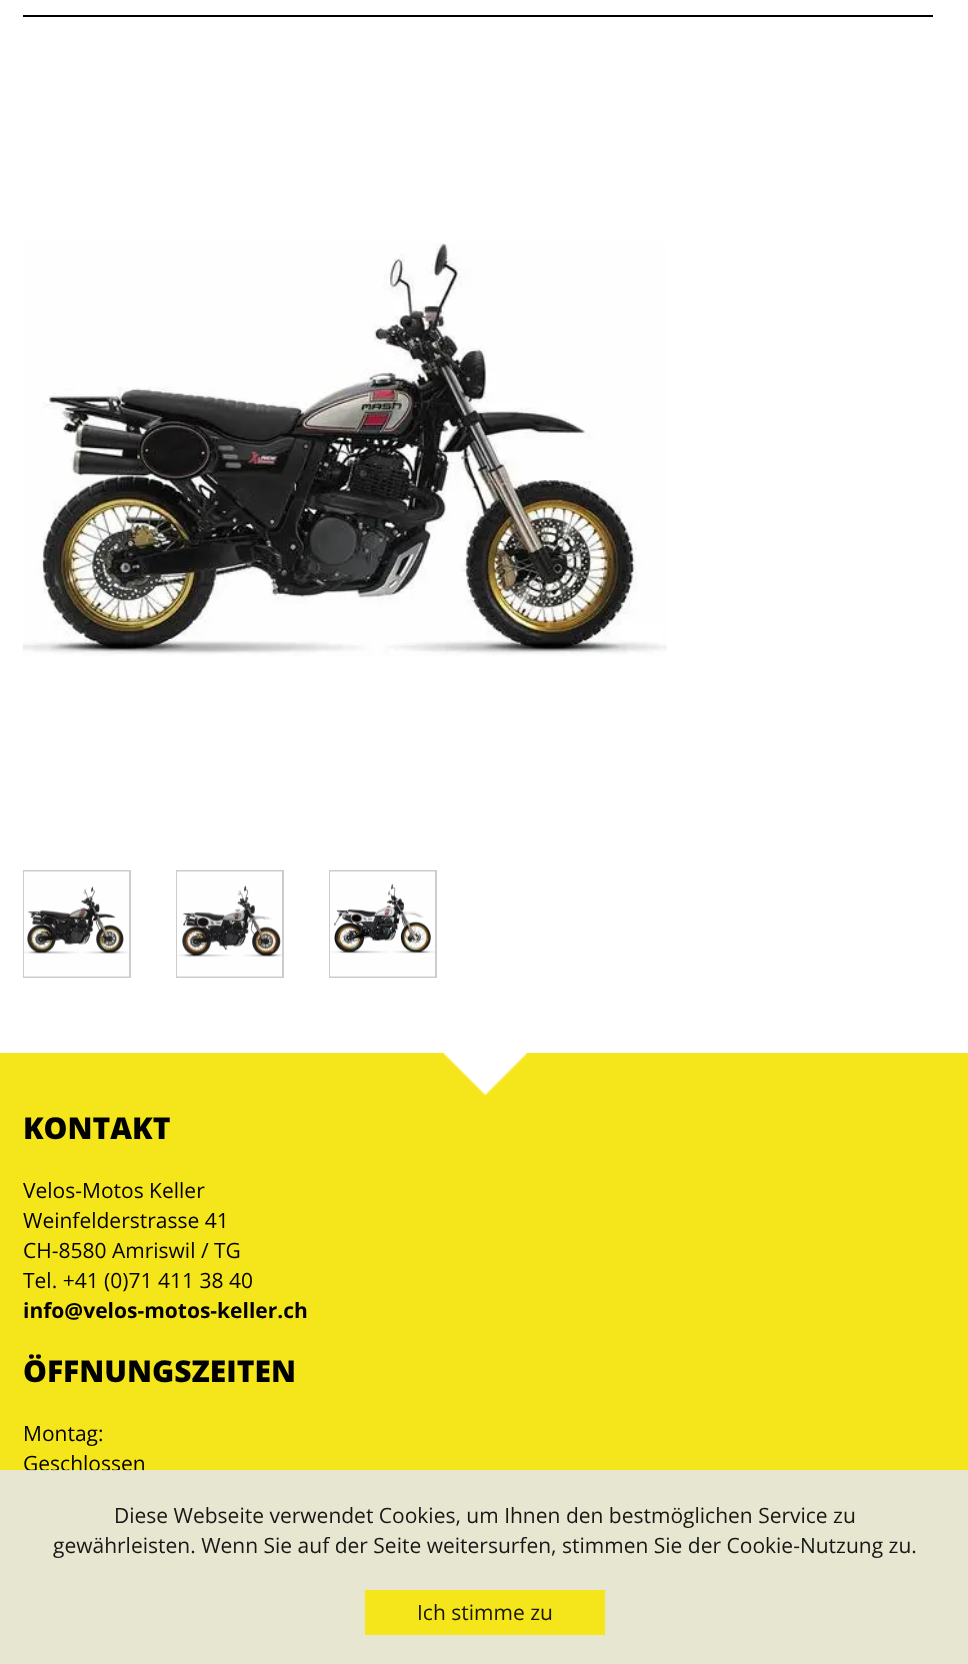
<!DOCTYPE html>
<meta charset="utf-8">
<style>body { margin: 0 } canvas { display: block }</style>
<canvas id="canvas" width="968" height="1664"></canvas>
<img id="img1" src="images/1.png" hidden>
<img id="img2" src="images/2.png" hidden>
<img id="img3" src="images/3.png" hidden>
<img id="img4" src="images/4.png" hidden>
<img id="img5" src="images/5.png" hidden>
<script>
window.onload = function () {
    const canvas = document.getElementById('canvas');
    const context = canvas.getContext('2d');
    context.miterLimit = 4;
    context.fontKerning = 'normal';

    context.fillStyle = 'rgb(245, 229, 27)';
    context.fillRect(0, 0, 968, 1664);
    context.fillStyle = 'rgb(255, 255, 255)';
    context.fillRect(0, 0, 968, 1053);
    context.fillStyle = 'rgb(0, 0, 0)';
    context.fillRect(23, 15, 910, 2);
    context.drawImage(document.getElementById('img1'), 22, 242, 645, 414);
    context.strokeStyle = 'rgb(204, 204, 204)';
    context.lineWidth = 2;
    context.strokeRect(24, 871, 106, 106);
    context.drawImage(document.getElementById('img2'), 24, 871, 105, 106);
    context.strokeRect(177, 871, 106, 106);
    context.drawImage(document.getElementById('img3'), 177, 871, 105, 106);
    context.strokeRect(330, 871, 106, 106);
    context.drawImage(document.getElementById('img4'), 330, 871, 105, 106);
    context.drawImage(document.getElementById('img5'), 444, 1053, 83, 42);
    context.font = '800 30px Open Sans';
    context.fillText('KONTAKT', 23, 1139);
    context.font = '21px Open Sans';
    context.fillText('Velos-Motos Keller', 23, 1198);
    context.fillText('Weinfelderstrasse 41', 23, 1228);
    context.fillText('CH-8580 Amriswil / TG', 23, 1258);
    context.fillText('Tel. +41 (0)71 411 38 40', 23, 1288);
    context.font = 'bold 21px Open Sans';
    context.fillText('info@velos-motos-keller.ch', 23, 1318);
    context.font = '800 30px Open Sans';
    context.fillText('ÖFFNUNGSZEITEN', 23, 1382);
    context.font = '21px Open Sans';
    context.fillText('Montag:', 23, 1441);
    context.fillText('Geschlossen', 23, 1471);
    context.fillStyle = 'rgba(230, 230, 230, 0.9)';
    context.fillRect(0, 1470, 968, 194);
    context.fillStyle = 'rgb(23, 23, 21)';
    context.fillText('Diese Webseite verwendet Cookies, um Ihnen den bestmöglichen Service zu', 114, 1523);
    context.fillText('gewährleisten. Wenn Sie auf der Seite weitersurfen, stimmen Sie der Cookie-Nutzung zu.', 53, 1553);
    context.fillStyle = 'rgb(245, 229, 27)';
    context.fillRect(365, 1590, 240, 45);
    context.fillStyle = 'rgb(25, 23, 3)';
    context.fillText('Ich stimme zu', 417, 1620);
};
</script>
